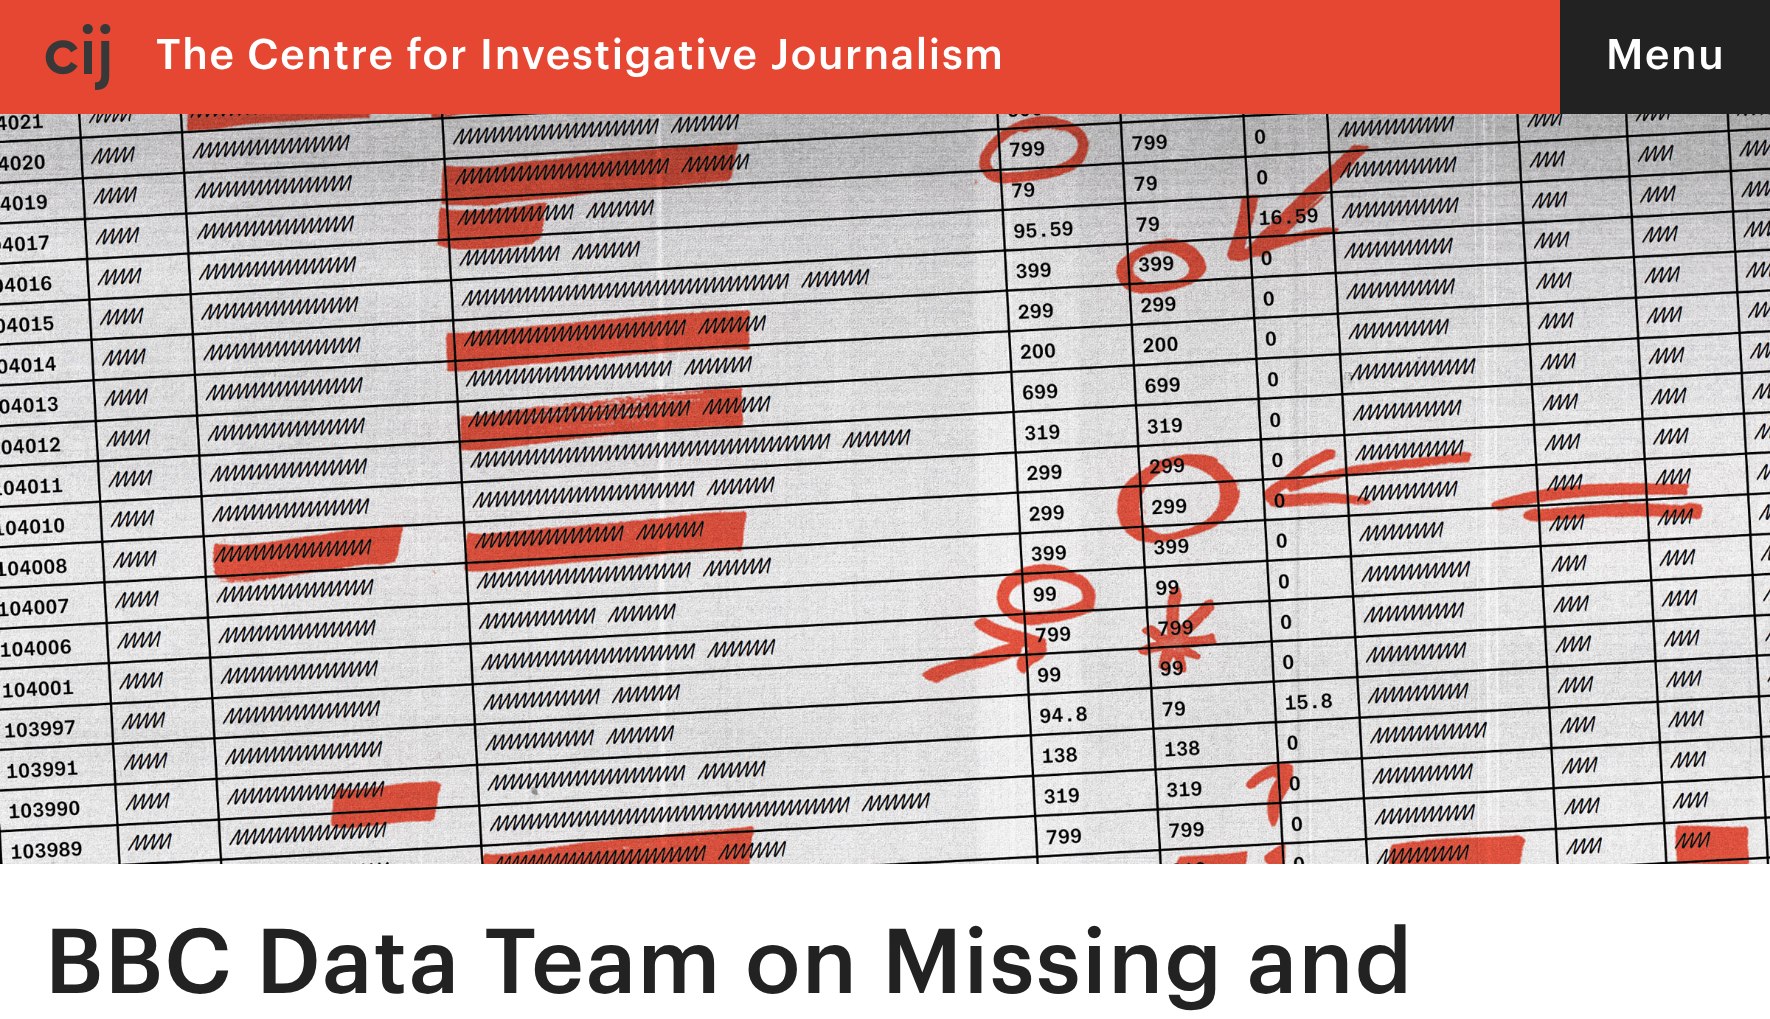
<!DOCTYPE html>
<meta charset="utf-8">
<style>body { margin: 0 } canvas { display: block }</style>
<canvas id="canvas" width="1770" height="1019"></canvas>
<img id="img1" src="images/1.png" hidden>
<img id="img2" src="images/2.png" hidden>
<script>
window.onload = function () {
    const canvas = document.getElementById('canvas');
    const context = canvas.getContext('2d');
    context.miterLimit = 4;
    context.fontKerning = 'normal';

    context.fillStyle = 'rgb(255, 255, 255)';
    context.fillRect(0, 0, 1770, 1019);
    context.fillStyle = 'rgb(230, 71, 51)';
    context.fillRect(0, 0, 1560, 114);
    context.drawImage(document.getElementById('img1'), 45, 24, 66, 66);
    context.fillStyle = 'rgb(34, 34, 34)';
    context.fillRect(1560, 0, 210, 114);
    context.drawImage(document.getElementById('img2'), 0, 114, 1770, 750);
    context.letterSpacing = '1.7px';
    context.font = '500 42px Graphik';
    context.fillStyle = 'rgb(255, 255, 255)';
    context.fillText('The Centre for Investigative Journalism', 156, 69);
    context.fillText('Menu', 1606, 69);
    context.font = '500 90px Graphik';
    context.fillStyle = 'rgb(34, 34, 34)';
    context.fillText('BBC Data Team on Missing and', 45, 993);
};
</script>
